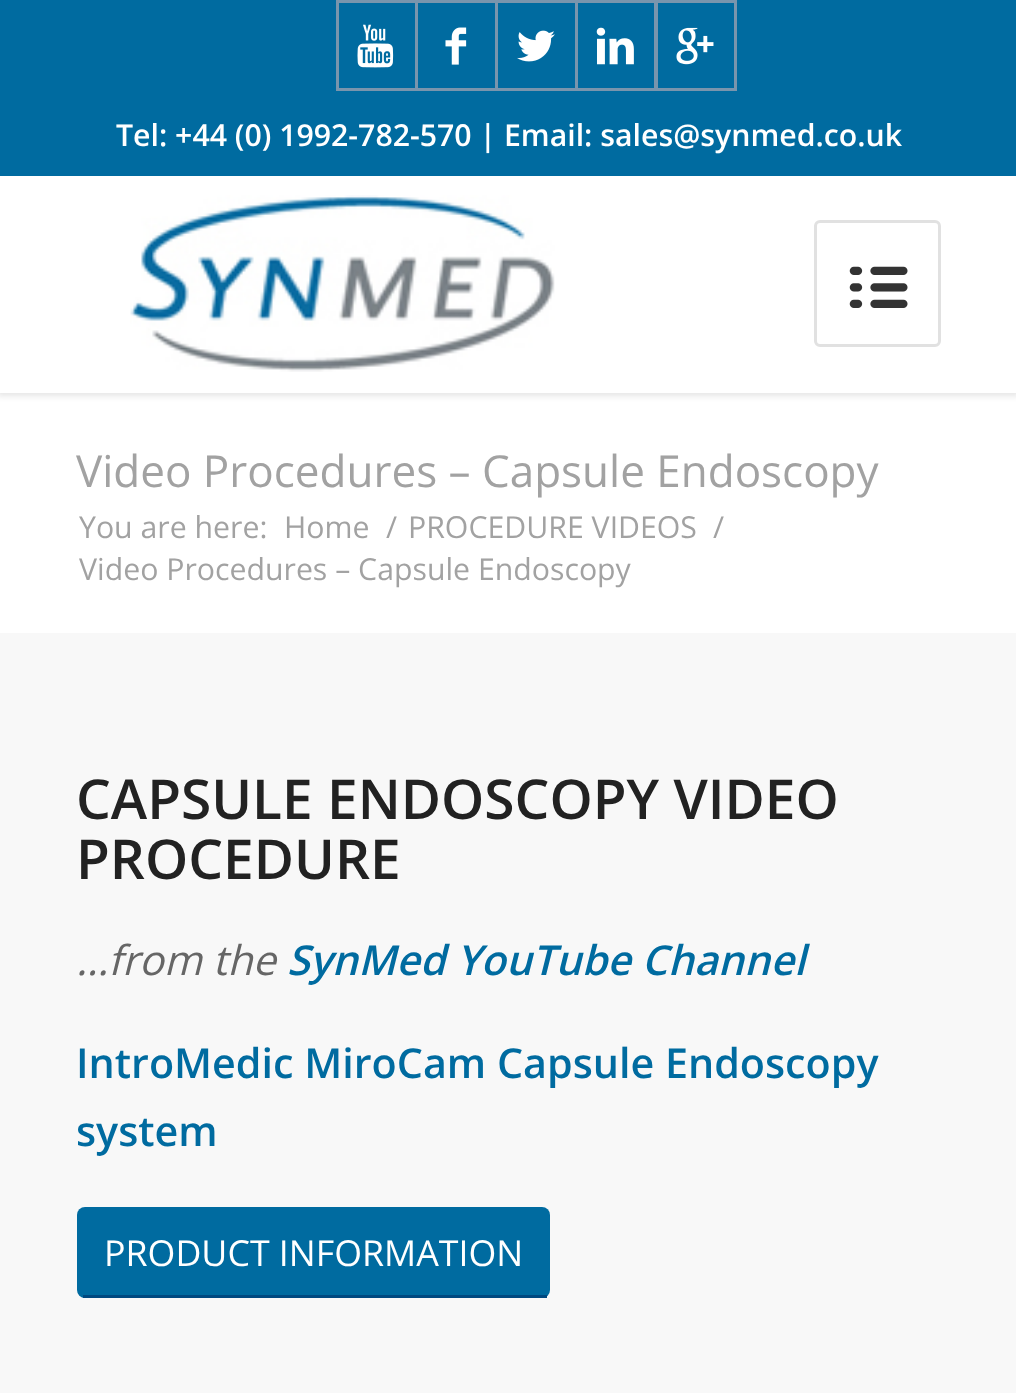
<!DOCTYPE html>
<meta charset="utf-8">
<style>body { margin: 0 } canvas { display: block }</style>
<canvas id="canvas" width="1016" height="1393"></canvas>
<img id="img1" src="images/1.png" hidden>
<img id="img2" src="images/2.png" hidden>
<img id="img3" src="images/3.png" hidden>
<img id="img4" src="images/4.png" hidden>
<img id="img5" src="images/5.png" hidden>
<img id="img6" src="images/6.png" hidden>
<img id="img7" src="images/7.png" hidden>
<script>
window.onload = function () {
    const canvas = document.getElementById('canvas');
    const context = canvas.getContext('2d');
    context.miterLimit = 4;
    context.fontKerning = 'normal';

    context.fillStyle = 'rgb(255, 255, 255)';
    context.fillRect(0, 0, 1016, 1393);
    context.fillStyle = 'rgba(0, 0, 0, 0.1)';
    context.filter = 'blur(3px)';
    context.beginPath();
    context.rect(-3, -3, 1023, 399);
    context.fill();
    context.filter = 'none';
    context.fillStyle = 'rgb(0, 107, 160)';
    context.fillRect(0, 0, 1016, 176);
    context.strokeStyle = 'rgb(121, 149, 173)';
    context.lineWidth = 3;
    context.strokeRect(337.5, 1.5, 79, 88);
    context.drawImage(document.getElementById('img1'), 357, 24, 37, 44);
    context.strokeRect(416.5, 1.5, 80, 88);
    context.drawImage(document.getElementById('img2'), 445, 27, 22, 38);
    context.strokeRect(496.5, 1.5, 80, 88);
    context.drawImage(document.getElementById('img3'), 517, 30, 38, 32);
    context.strokeRect(576.5, 1.5, 79, 88);
    context.drawImage(document.getElementById('img4'), 596, 27, 38, 38);
    context.strokeRect(656.5, 1.5, 79, 88);
    context.drawImage(document.getElementById('img5'), 676, 27, 38, 38);
    context.fillStyle = 'rgb(255, 255, 255)';
    context.fillRect(0, 176, 1016, 217);
    context.drawImage(document.getElementById('img6'), 130, 195, 425, 177);
    context.beginPath();
    context.roundRect(815.5, 221.5, 124, 124, 4.5);
    context.strokeStyle = 'rgb(225, 225, 225)';
    context.stroke();
    context.drawImage(document.getElementById('img7'), 849, 266, 59, 42);
    context.fillStyle = 'rgb(248, 248, 248)';
    context.fillRect(0, 633, 1016, 760);
    context.fillStyle = 'rgb(0, 107, 160)';
    context.beginPath();
    context.roundRect(77, 1207, 473, 91, 8);
    context.fill();
    context.fillStyle = 'rgb(0, 73, 128)';
    context.fillRect(83, 1295, 464, 3);
    context.font = '600 30.25px Open Sans';
    context.fillStyle = 'rgb(255, 255, 255)';
    context.fillText('Tel: +44 (0) 1992-782-570 | Email: sales@synmed.co.uk', 116, 146);
    context.font = '44px Open Sans';
    context.fillStyle = 'rgb(162, 162, 162)';
    context.fillText('Video Procedures – Capsule Endoscopy', 76, 487);
    context.font = '30.25px Open Sans';
    context.fillText('You are here:', 79, 538);
    context.fillText('Home', 284, 538);
    context.fillText('/', 386, 538);
    context.fillText('PROCEDURE VIDEOS', 408, 538);
    context.fillText('/', 713, 538);
    context.fillText('Video Procedures – Capsule Endoscopy', 79, 580);
    context.font = '600 55px Open Sans';
    context.fillStyle = 'rgb(34, 34, 34)';
    context.fillText('CAPSULE ENDOSCOPY VIDEO', 76, 819);
    context.fillText('PROCEDURE', 76, 879);
    context.font = 'italic 41.25px Open Sans';
    context.fillStyle = 'rgb(102, 102, 102)';
    context.fillText('…from the', 76, 975);
    context.font = 'italic 600 41.25px Open Sans';
    context.fillStyle = 'rgb(0, 107, 160)';
    context.fillText('SynMed YouTube Channel', 287, 975);
    context.font = '600 41.25px Open Sans';
    context.fillText('IntroMedic MiroCam Capsule Endoscopy', 76, 1078);
    context.fillText('system', 76, 1146);
    context.font = '35.75px Open Sans';
    context.fillStyle = 'rgb(255, 255, 255)';
    context.fillText('PRODUCT INFORMATION', 104, 1266);
};
</script>
